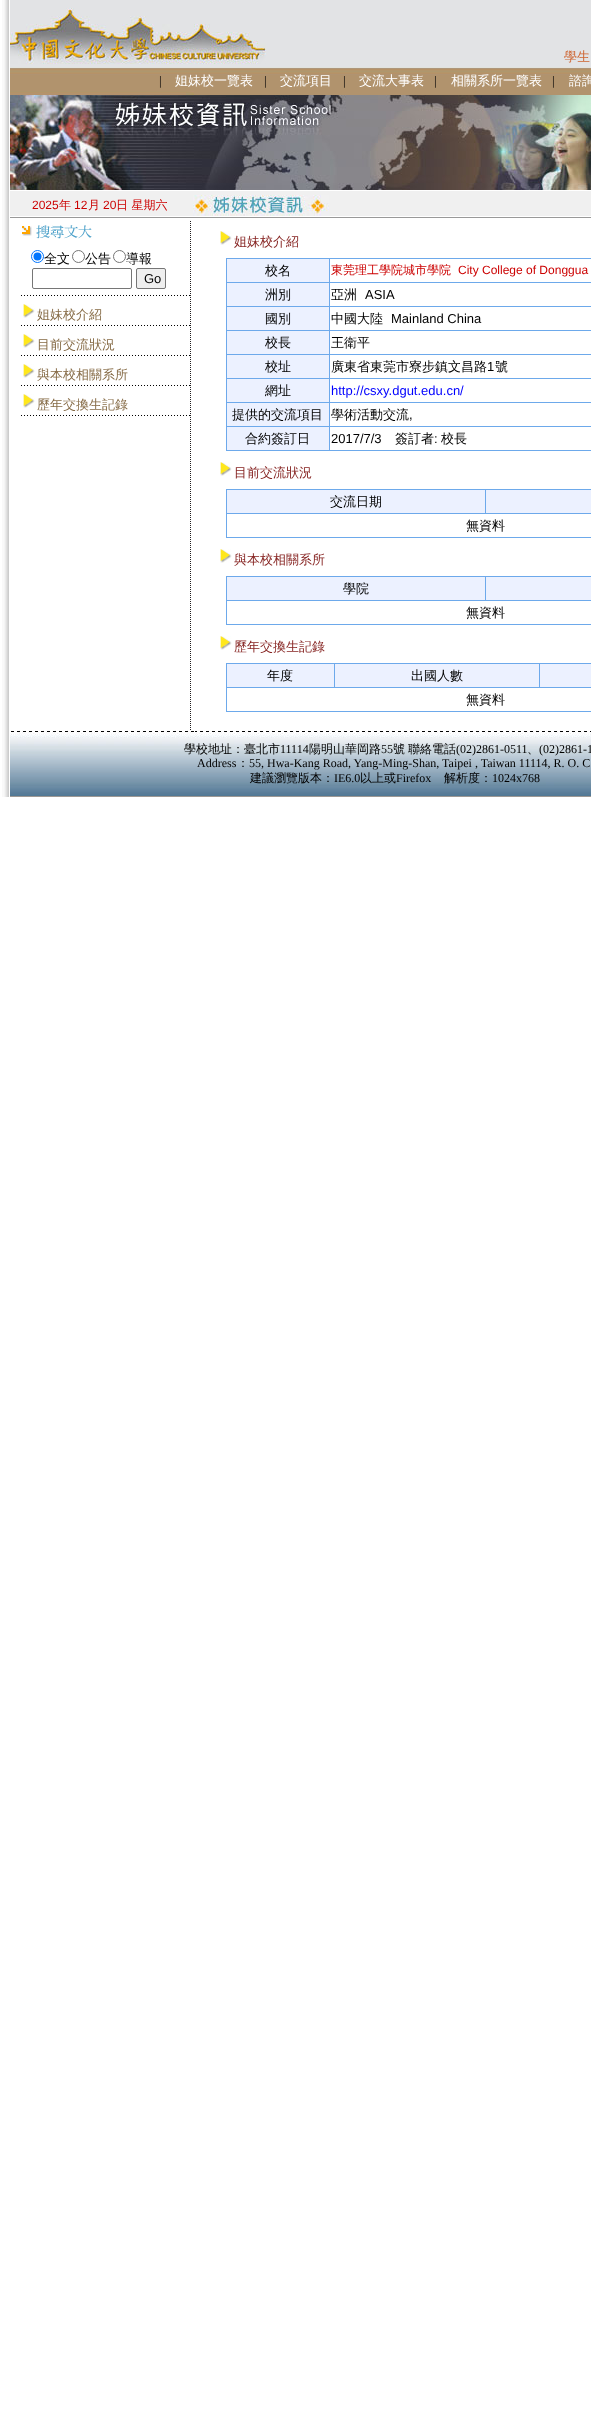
<!DOCTYPE html>
<meta charset="utf-8">
<style>body { margin: 0 } canvas { display: block }</style>
<canvas id="canvas" width="591" height="2414"></canvas>
<img id="img1" src="images/1.png" hidden>
<img id="img2" src="images/2.png" hidden>
<img id="img3" src="images/3.png" hidden>
<img id="img4" src="images/4.png" hidden>
<img id="img5" src="images/5.png" hidden>
<img id="img6" src="images/6.png" hidden>
<img id="img7" src="images/7.png" hidden>
<img id="img8" src="images/8.png" hidden>
<img id="img9" src="images/9.png" hidden>
<img id="img10" src="images/10.png" hidden>
<img id="img11" src="images/11.png" hidden>
<img id="img12" src="images/12.png" hidden>
<img id="img13" src="images/13.png" hidden>
<script>
window.onload = function () {
    const canvas = document.getElementById('canvas');
    const context = canvas.getContext('2d');
    context.miterLimit = 4;
    context.fontKerning = 'normal';

    context.fillStyle = 'rgb(255, 255, 255)';
    context.fillRect(0, 0, 591, 2414);
    context.drawImage(document.getElementById('img1'), 2, 0, 7, 797);
    context.drawImage(document.getElementById('img2'), 10, 0, 263, 67);
    context.fillStyle = 'rgb(226, 227, 229)';
    context.fillRect(273, 0, 318, 67);
    context.drawImage(document.getElementById('img3'), 10, 67, 581, 28);
    context.drawImage(document.getElementById('img4'), 10, 95, 581, 95);
    context.drawImage(document.getElementById('img5'), 10, 191, 180, 27);
    context.drawImage(document.getElementById('img6'), 190, 191, 3, 27);
    context.drawImage(document.getElementById('img7'), 193, 191, 398, 27);
    context.drawImage(document.getElementById('img8'), 193, 195, 136, 21);
    context.drawImage(document.getElementById('img9'), 20, 225, 72, 14);
    context.beginPath();
    context.arc(37.5, 256.5, 6, 0, 2 * Math.PI);
    context.strokeStyle = 'rgb(0, 117, 255)';
    context.stroke();
    context.fillStyle = 'rgb(0, 117, 255)';
    context.beginPath();
    context.arc(37.5, 256.5, 4, 0, 2 * Math.PI);
    context.fill();
    context.beginPath();
    context.arc(78.5, 256.5, 6, 0, 2 * Math.PI);
    context.strokeStyle = 'rgb(118, 118, 118)';
    context.stroke();
    context.beginPath();
    context.arc(119.5, 256.5, 6, 0, 2 * Math.PI);
    context.stroke();
    context.beginPath();
    context.roundRect(32.5, 268.5, 99, 20, 1.5);
    context.stroke();
    context.fillStyle = 'rgb(239, 239, 239)';
    context.beginPath();
    context.roundRect(136.5, 268.5, 29, 20, 1.5);
    context.fill();
    context.stroke();
    context.drawImage(document.getElementById('img10'), 21, 295, 169, 1);
    context.drawImage(document.getElementById('img11'), 23, 304, 12, 14);
    context.drawImage(document.getElementById('img10'), 21, 325, 169, 1);
    context.drawImage(document.getElementById('img11'), 23, 334, 12, 14);
    context.drawImage(document.getElementById('img10'), 21, 355, 169, 1);
    context.drawImage(document.getElementById('img11'), 23, 364, 12, 14);
    context.drawImage(document.getElementById('img10'), 21, 385, 169, 1);
    context.drawImage(document.getElementById('img11'), 23, 394, 12, 14);
    context.drawImage(document.getElementById('img10'), 21, 415, 169, 1);
    context.drawImage(document.getElementById('img12'), 190, 221, 1, 509);
    context.drawImage(document.getElementById('img11'), 220, 231, 12, 14);
    context.fillStyle = 'rgb(109, 169, 235)';
    context.fillRect(226, 258, 365, 1);
    context.fillRect(226, 450, 365, 1);
    context.fillRect(226, 258, 1, 193);
    context.fillStyle = 'rgb(236, 241, 255)';
    context.fillRect(227, 259, 102, 23);
    context.fillStyle = 'rgb(109, 169, 235)';
    context.fillRect(329, 282, 262, 1);
    context.fillRect(329, 306, 262, 1);
    context.fillRect(329, 330, 262, 1);
    context.fillRect(329, 354, 262, 1);
    context.fillRect(329, 378, 262, 1);
    context.fillRect(329, 402, 262, 1);
    context.fillRect(329, 426, 262, 1);
    context.fillRect(329, 426, 1, 25);
    context.fillRect(226, 426, 104, 1);
    context.fillRect(329, 402, 1, 25);
    context.fillRect(226, 402, 104, 1);
    context.fillRect(329, 378, 1, 25);
    context.fillRect(226, 378, 104, 1);
    context.fillRect(329, 354, 1, 25);
    context.fillRect(226, 354, 104, 1);
    context.fillRect(329, 330, 1, 25);
    context.fillRect(226, 330, 104, 1);
    context.fillRect(329, 306, 1, 25);
    context.fillRect(226, 306, 104, 1);
    context.fillRect(329, 282, 1, 25);
    context.fillRect(226, 282, 104, 1);
    context.fillRect(329, 258, 1, 25);
    context.fillStyle = 'rgb(236, 241, 255)';
    context.fillRect(227, 283, 102, 23);
    context.fillRect(227, 307, 102, 23);
    context.fillRect(227, 331, 102, 23);
    context.fillRect(227, 355, 102, 23);
    context.fillRect(227, 379, 102, 23);
    context.fillRect(227, 403, 102, 23);
    context.fillRect(227, 427, 102, 23);
    context.drawImage(document.getElementById('img11'), 220, 462, 12, 14);
    context.fillStyle = 'rgb(109, 169, 235)';
    context.fillRect(226, 489, 365, 1);
    context.fillRect(226, 537, 365, 1);
    context.fillRect(226, 489, 1, 49);
    context.fillStyle = 'rgb(236, 241, 255)';
    context.fillRect(227, 490, 364, 23);
    context.fillStyle = 'rgb(109, 169, 235)';
    context.fillRect(226, 513, 365, 1);
    context.fillRect(485, 489, 1, 25);
    context.drawImage(document.getElementById('img11'), 220, 549, 12, 14);
    context.fillRect(226, 576, 365, 1);
    context.fillRect(226, 624, 365, 1);
    context.fillRect(226, 576, 1, 49);
    context.fillStyle = 'rgb(236, 241, 255)';
    context.fillRect(227, 577, 364, 23);
    context.fillStyle = 'rgb(109, 169, 235)';
    context.fillRect(226, 600, 365, 1);
    context.fillRect(485, 576, 1, 25);
    context.drawImage(document.getElementById('img11'), 220, 636, 12, 14);
    context.fillRect(226, 663, 365, 1);
    context.fillRect(226, 711, 365, 1);
    context.fillRect(226, 663, 1, 49);
    context.fillStyle = 'rgb(236, 241, 255)';
    context.fillRect(227, 664, 364, 23);
    context.fillStyle = 'rgb(109, 169, 235)';
    context.fillRect(226, 687, 365, 1);
    context.fillRect(334, 663, 1, 25);
    context.fillRect(539, 663, 1, 25);
    context.drawImage(document.getElementById('img13'), 10, 730, 581, 67);
    context.font = '500 13px WenQuanYi Zen Hei';
    context.fillStyle = 'rgb(206, 101, 49)';
    context.fillText('學生', 564, 61);
    context.font = '13px Liberation Serif';
    context.fillStyle = 'rgb(0, 0, 0)';
    context.fillText('|', 159, 85);
    context.font = '500 13px WenQuanYi Zen Hei';
    context.fillStyle = 'rgb(255, 255, 255)';
    context.fillText('姐妹校一覽表', 175, 85);
    context.font = '13px Liberation Serif';
    context.fillStyle = 'rgb(0, 0, 0)';
    context.fillText('|', 264, 85);
    context.font = '500 13px WenQuanYi Zen Hei';
    context.fillStyle = 'rgb(255, 255, 255)';
    context.fillText('交流項目', 280, 85);
    context.font = '13px Liberation Serif';
    context.fillStyle = 'rgb(0, 0, 0)';
    context.fillText('|', 343, 85);
    context.font = '500 13px WenQuanYi Zen Hei';
    context.fillStyle = 'rgb(255, 255, 255)';
    context.fillText('交流大事表', 359, 85);
    context.font = '13px Liberation Serif';
    context.fillStyle = 'rgb(0, 0, 0)';
    context.fillText('|', 434, 85);
    context.font = '500 13px WenQuanYi Zen Hei';
    context.fillStyle = 'rgb(255, 255, 255)';
    context.fillText('相關系所一覽表', 451, 85);
    context.font = '13px Liberation Serif';
    context.fillStyle = 'rgb(0, 0, 0)';
    context.fillText('|', 552, 85);
    context.font = '500 13px WenQuanYi Zen Hei';
    context.fillStyle = 'rgb(255, 255, 255)';
    context.fillText('諮詢', 569, 85);
    context.font = '12px Liberation Sans';
    context.fillStyle = 'rgb(204, 0, 0)';
    context.fillText('2025', 32, 209);
    context.font = '500 12px WenQuanYi Zen Hei';
    context.fillText('年', 59, 209);
    context.font = '12px Liberation Sans';
    context.fillText('12', 74, 209);
    context.font = '500 12px WenQuanYi Zen Hei';
    context.fillText('月', 88, 209);
    context.font = '12px Liberation Sans';
    context.fillText('20', 103, 209);
    context.font = '500 12px WenQuanYi Zen Hei';
    context.fillText('日 星期六', 116, 209);
    context.font = '500 13px WenQuanYi Zen Hei';
    context.fillStyle = 'rgb(0, 0, 0)';
    context.fillText('全文', 44, 263);
    context.fillText('公告', 85, 263);
    context.fillText('導報', 126, 263);
    context.font = '13px Liberation Sans';
    context.fillText('Go', 144, 283);
    context.font = '500 13px WenQuanYi Zen Hei';
    context.fillStyle = 'rgb(134, 107, 70)';
    context.fillText('姐妹校介紹', 37, 319);
    context.fillText('目前交流狀況', 37, 349);
    context.fillText('與本校相關系所', 37, 379);
    context.fillText('歷年交換生記錄', 37, 409);
    context.fillStyle = 'rgb(135, 37, 35)';
    context.fillText('姐妹校介紹', 234, 246);
    context.fillStyle = 'rgb(0, 0, 0)';
    context.fillText('校名', 265, 275);
    context.font = '500 12px WenQuanYi Zen Hei';
    context.fillStyle = 'rgb(204, 0, 0)';
    context.fillText('東莞理工學院城市學院', 331, 274);
    context.font = '12px Liberation Sans';
    context.fillText('City College of Donggua', 458, 274);
    context.font = '500 13px WenQuanYi Zen Hei';
    context.fillStyle = 'rgb(0, 0, 0)';
    context.fillText('洲別', 265, 299);
    context.fillText('亞洲', 331, 299);
    context.font = '13px Liberation Sans';
    context.fillText('ASIA', 365, 299);
    context.font = '500 13px WenQuanYi Zen Hei';
    context.fillText('國別', 265, 323);
    context.fillText('中國大陸', 331, 323);
    context.font = '13px Liberation Sans';
    context.fillText('Mainland China', 391, 323);
    context.font = '500 13px WenQuanYi Zen Hei';
    context.fillText('校長', 265, 347);
    context.fillText('王衛平', 331, 347);
    context.fillText('校址', 265, 371);
    context.fillText('廣東省東莞市寮步鎮文昌路', 331, 371);
    context.font = '13px Liberation Sans';
    context.fillText('1', 487, 371);
    context.font = '500 13px WenQuanYi Zen Hei';
    context.fillText('號', 495, 371);
    context.fillText('網址', 265, 395);
    context.font = '13px Liberation Sans';
    context.fillStyle = 'rgb(0, 0, 255)';
    context.fillText('http://csxy.dgut.edu.cn/', 331, 395);
    context.font = '500 13px WenQuanYi Zen Hei';
    context.fillStyle = 'rgb(0, 0, 0)';
    context.fillText('提供的交流項目', 232, 419);
    context.fillText('學術活動交流', 331, 419);
    context.font = '13px Liberation Sans';
    context.fillText(',', 409, 419);
    context.font = '500 13px WenQuanYi Zen Hei';
    context.fillText('合約簽訂日', 245, 443);
    context.font = '13px Liberation Sans';
    context.fillText('2017/7/3', 331, 443);
    context.font = '500 13px WenQuanYi Zen Hei';
    context.fillText('簽訂者', 395, 443);
    context.font = '13px Liberation Sans';
    context.fillText(':', 434, 443);
    context.font = '500 13px WenQuanYi Zen Hei';
    context.fillText('校長', 441, 443);
    context.fillStyle = 'rgb(135, 37, 35)';
    context.fillText('目前交流狀況', 234, 477);
    context.fillStyle = 'rgb(0, 0, 0)';
    context.fillText('交流日期', 330, 506);
    context.fillText('無資料', 466, 530);
    context.fillStyle = 'rgb(135, 37, 35)';
    context.fillText('與本校相關系所', 234, 564);
    context.fillStyle = 'rgb(0, 0, 0)';
    context.fillText('學院', 343, 593);
    context.fillText('無資料', 466, 617);
    context.fillStyle = 'rgb(135, 37, 35)';
    context.fillText('歷年交換生記錄', 234, 651);
    context.fillStyle = 'rgb(0, 0, 0)';
    context.fillText('年度', 267, 680);
    context.fillText('出國人數', 411, 680);
    context.fillText('無資料', 466, 704);
    context.font = '500 12px WenQuanYi Zen Hei';
    context.fillText('學校地址：臺北市', 184, 753);
    context.font = '12px Liberation Serif';
    context.fillText('11114', 280, 753);
    context.font = '500 12px WenQuanYi Zen Hei';
    context.fillText('陽明山華岡路', 309, 753);
    context.font = '12px Liberation Serif';
    context.fillText('55', 381, 753);
    context.font = '500 12px WenQuanYi Zen Hei';
    context.fillText('號', 393, 753);
    context.fillText('聯絡電話', 408, 753);
    context.font = '12px Liberation Serif';
    context.fillText('(02)2861-0511', 456, 753);
    context.font = '500 12px WenQuanYi Zen Hei';
    context.fillText('、', 527, 753);
    context.font = '12px Liberation Serif';
    context.fillText('(02)2861-1', 539, 753);
    context.fillText('Address', 197, 767);
    context.font = '500 12px WenQuanYi Zen Hei';
    context.fillText('：', 237, 767);
    context.font = '12px Liberation Serif';
    context.fillText('55, Hwa-Kang Road, Yang-Ming-Shan, Taipei , Taiwan 11114, R. O. C', 249, 767);
    context.font = '500 12px WenQuanYi Zen Hei';
    context.fillText('建議瀏覽版本：', 250, 782);
    context.font = '12px Liberation Serif';
    context.fillText('IE6.0', 334, 782);
    context.font = '500 12px WenQuanYi Zen Hei';
    context.fillText('以上或', 360, 782);
    context.font = '12px Liberation Serif';
    context.fillText('Firefox', 396, 782);
    context.font = '500 12px WenQuanYi Zen Hei';
    context.fillText('解析度：', 444, 782);
    context.font = '12px Liberation Serif';
    context.fillText('1024x768', 492, 782);
};
</script>
